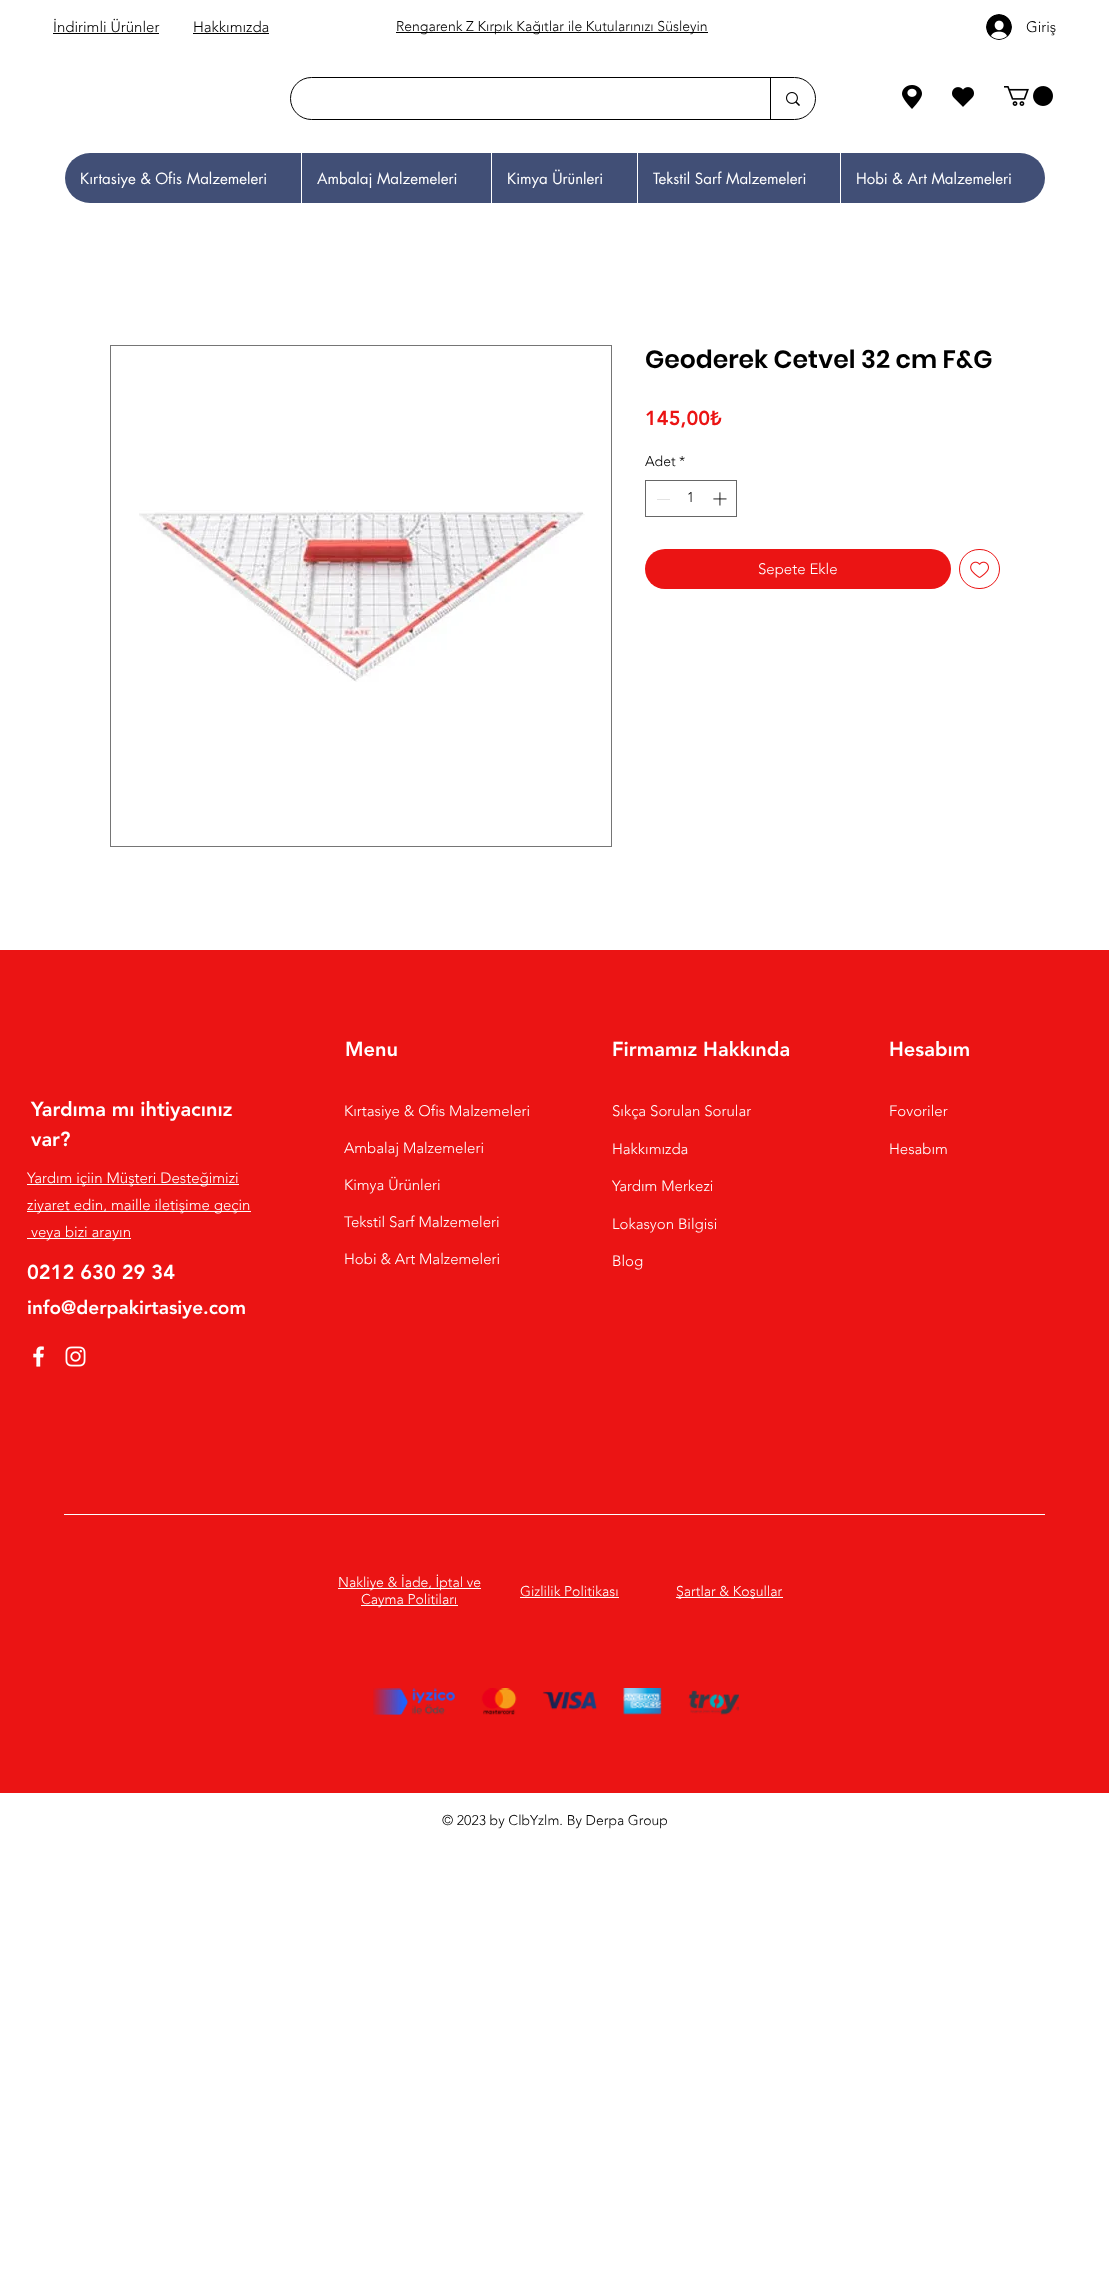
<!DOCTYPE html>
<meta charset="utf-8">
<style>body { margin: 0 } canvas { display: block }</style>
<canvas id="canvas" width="1109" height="2293"></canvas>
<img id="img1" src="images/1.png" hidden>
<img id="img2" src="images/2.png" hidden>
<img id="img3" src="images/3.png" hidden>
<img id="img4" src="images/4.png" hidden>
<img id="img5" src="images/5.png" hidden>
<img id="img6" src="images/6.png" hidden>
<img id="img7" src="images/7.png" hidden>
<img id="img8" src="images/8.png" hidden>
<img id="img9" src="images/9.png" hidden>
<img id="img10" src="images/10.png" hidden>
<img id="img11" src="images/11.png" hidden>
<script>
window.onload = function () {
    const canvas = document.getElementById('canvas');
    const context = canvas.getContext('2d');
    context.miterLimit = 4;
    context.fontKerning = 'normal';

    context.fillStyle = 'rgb(255, 255, 255)';
    context.fillRect(0, 0, 1109, 2293);
    context.fillStyle = 'rgb(0, 0, 0)';
    context.fillRect(53, 33, 106, 1);
    context.fillRect(193, 33, 76, 1);
    context.fillRect(396, 32, 312, 1);
    context.drawImage(document.getElementById('img1'), 986, 14, 26, 26);
    context.beginPath();
    context.roundRect(290.5, 77.5, 525, 42, 21);
    context.strokeStyle = 'rgb(0, 0, 0)';
    context.stroke();
    context.fillRect(770, 78, 1, 41);
    context.drawImage(document.getElementById('img2'), 786, 92, 14, 14);
    context.drawImage(document.getElementById('img3'), 902, 85, 20, 24);
    context.drawImage(document.getElementById('img4'), 952, 87, 22, 20);
    context.drawImage(document.getElementById('img5'), 1004, 86, 49, 20);
    context.fillStyle = 'rgb(65, 79, 118)';
    context.beginPath();
    context.roundRect(65, 153, 980, 50, 25);
    context.fill();
    context.fillStyle = 'rgb(255, 255, 255)';
    context.fillRect(301, 153, 1, 50);
    context.fillRect(491, 153, 1, 50);
    context.fillRect(637, 153, 1, 50);
    context.fillRect(840, 153, 1, 50);
    context.strokeStyle = 'rgb(117, 117, 117)';
    context.strokeRect(110.5, 345.5, 501, 501);
    context.drawImage(document.getElementById('img6'), 139, 510, 446, 172);
    context.strokeStyle = 'rgb(102, 102, 102)';
    context.strokeRect(645.5, 480.5, 91, 36);
    context.fillStyle = 'rgb(227, 227, 227)';
    context.fillRect(657, 499, 13, 1);
    context.drawImage(document.getElementById('img7'), 713, 492, 14, 14);
    context.fillStyle = 'rgb(235, 20, 20)';
    context.beginPath();
    context.roundRect(645, 549, 306, 40, 20);
    context.fill();
    context.beginPath();
    context.roundRect(959.5, 549.5, 40, 39, 19.5);
    context.strokeStyle = 'rgb(235, 20, 20)';
    context.stroke();
    context.drawImage(document.getElementById('img8'), 970, 561, 19, 17);
    context.fillRect(0, 950, 1109, 843);
    context.fillStyle = 'rgb(255, 255, 255)';
    context.fillRect(27, 1184, 212, 1);
    context.fillRect(27, 1211, 224, 1);
    context.fillRect(27, 1238, 104, 1);
    context.drawImage(document.getElementById('img9'), 33, 1346, 11, 21);
    context.drawImage(document.getElementById('img10'), 65, 1346, 21, 21);
    context.fillRect(64, 1514, 981, 1);
    context.fillRect(338, 1588, 143, 1);
    context.fillRect(361, 1605, 97, 1);
    context.fillRect(520, 1597, 99, 1);
    context.fillRect(676, 1597, 107, 1);
    context.drawImage(document.getElementById('img11'), 373, 1688, 366, 27);
    context.font = '300 15px "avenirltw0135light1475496"';
    context.fillStyle = 'rgb(0, 0, 0)';
    context.fillText('İndirimli Ürünler', 53, 32);
    context.fillText('Hakkımızda', 193, 32);
    context.font = '300 14px "avenirltw0135light1475496"';
    context.fillText('Rengarenk Z Kırpık Kağıtlar ile Kutularınızı Süsleyin', 396, 31);
    context.font = '300 15px "avenirltw0135light1475496"';
    context.fillText('Giriş', 1026, 32);
    context.font = '15px futura';
    context.fillStyle = 'rgb(255, 255, 255)';
    context.fillText('Kırtasiye & Ofis Malzemeleri', 80, 184);
    context.fillText('Ambalaj Malzemeleri', 317, 184);
    context.fillText('Kimya Ürünleri', 507, 184);
    context.fillText('Tekstil Sarf Malzemeleri', 653, 184);
    context.fillText('Hobi & Art Malzemeleri', 856, 184);
    context.font = '600 25px Poppins';
    context.fillStyle = 'rgb(0, 0, 0)';
    context.fillText('Geoderek Cetvel 32 cm F&G', 645, 368);
    context.font = '900 20px "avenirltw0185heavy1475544"';
    context.fillStyle = 'rgb(235, 20, 20)';
    context.fillText('145,00₺', 645, 425);
    context.font = '300 14px "avenirltw0135light1475496"';
    context.fillStyle = 'rgb(0, 0, 0)';
    context.fillText('Adet', 645, 466);
    context.fillText('*', 679, 466);
    context.fillText('1', 687, 502);
    context.font = '300 15px "avenirltw0135light1475496"';
    context.fillStyle = 'rgb(255, 255, 255)';
    context.fillText('Sepete Ekle', 758, 574);
    context.font = '900 20px "avenirltw0185heavy1475544"';
    context.fillText('Yardıma mı ihtiyacınız', 31, 1116);
    context.fillText('var?', 31, 1146);
    context.font = '300 15px "avenirltw0135light1475496"';
    context.fillText('Yardım içiin Müşteri Desteğimizi', 27, 1183);
    context.fillText('ziyaret edin, maille iletişime geçin', 27, 1210);
    context.fillText('veya bizi arayın', 31, 1237);
    context.font = '900 20px "avenirltw0185heavy1475544"';
    context.fillText('0212 630 29 34', 27, 1279);
    context.font = '900 19px "avenirltw0185heavy1475544"';
    context.fillText('info@derpakirtasiye.com', 27, 1314);
    context.font = '900 20px "avenirltw0185heavy1475544"';
    context.fillText('Menu', 345, 1056);
    context.font = '300 15px "avenirltw0135light1475496"';
    context.fillText('Kırtasiye & Ofis Malzemeleri', 344, 1116);
    context.fillText('Ambalaj Malzemeleri', 344, 1153);
    context.fillText('Kimya Ürünleri', 344, 1190);
    context.fillText('Tekstil Sarf Malzemeleri', 344, 1227);
    context.fillText('Hobi & Art Malzemeleri', 344, 1264);
    context.font = '900 20px "avenirltw0185heavy1475544"';
    context.fillText('Firmamız Hakkında', 612, 1056);
    context.font = '300 15px "avenirltw0135light1475496"';
    context.fillText('Sıkça Sorulan Sorular', 612, 1116);
    context.fillText('Hakkımızda', 612, 1154);
    context.fillText('Yardım Merkezi', 612, 1191);
    context.fillText('Lokasyon Bilgisi', 612, 1229);
    context.fillText('Blog', 612, 1266);
    context.font = '900 20px "avenirltw0185heavy1475544"';
    context.fillText('Hesabım', 889, 1056);
    context.font = '300 15px "avenirltw0135light1475496"';
    context.fillText('Fovoriler', 889, 1116);
    context.fillText('Hesabım', 889, 1154);
    context.font = '300 14px "avenirltw0135light1475496"';
    context.fillText('Nakliye & İade, İptal ve', 338, 1587);
    context.fillText('Cayma Politiları', 361, 1604);
    context.fillText('Gizlilik Politikası', 520, 1596);
    context.fillText('Şartlar & Koşullar', 676, 1596);
    context.fillStyle = 'rgb(0, 0, 0)';
    context.fillText('© 2023 by ClbYzlm. By Derpa Group', 442, 1825);
};
</script>
